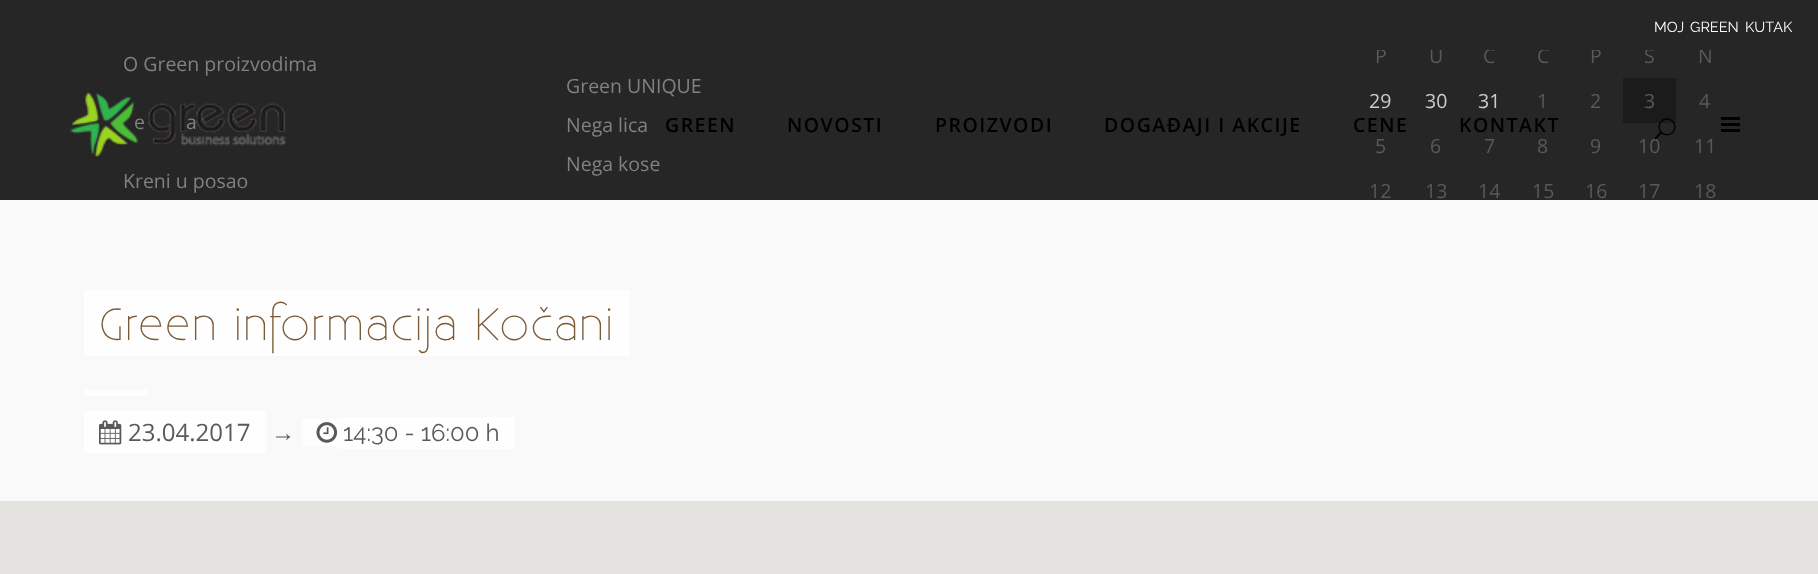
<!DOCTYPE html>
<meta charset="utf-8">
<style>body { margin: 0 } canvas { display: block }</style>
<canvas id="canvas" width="1818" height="574"></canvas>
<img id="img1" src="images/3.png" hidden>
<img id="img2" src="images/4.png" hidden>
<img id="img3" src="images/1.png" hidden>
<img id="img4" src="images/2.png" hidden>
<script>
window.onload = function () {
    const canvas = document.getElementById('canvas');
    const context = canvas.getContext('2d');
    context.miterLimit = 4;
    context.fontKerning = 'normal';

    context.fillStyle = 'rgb(38, 38, 38)';
    context.fillRect(0, 0, 1818, 574);
    context.fillStyle = 'rgb(0, 0, 0)';
    context.fillRect(1721, 123, 19, 3);
    context.fillRect(1721, 117, 19, 3);
    context.fillRect(1721, 129, 19, 3);
    context.fillStyle = 'rgb(27, 27, 27)';
    context.fillRect(1623, 78, 53, 45);
    context.fillStyle = 'rgb(249, 249, 249)';
    context.fillRect(0, 200, 1818, 301);
    context.fillStyle = 'rgb(254, 254, 254)';
    context.fillRect(84, 290, 546, 66);
    context.fillRect(84, 390, 63, 6);
    context.fillRect(84, 411, 182, 42);
    context.drawImage(document.getElementById('img1'), 99, 420, 23, 25);
    context.fillRect(302, 419, 36, 27);
    context.fillRect(338, 417, 177, 32);
    context.drawImage(document.getElementById('img2'), 316, 422, 22, 21);
    context.fillStyle = 'rgb(229, 227, 223)';
    context.fillRect(0, 501, 1818, 73);
    context.font = '14.5px Raleway';
    context.fillStyle = 'rgb(255, 255, 255)';
    context.fillText('MOJ', 1654, 32);
    context.fillText('GREEN', 1690, 32);
    context.fillText('KUTAK', 1745, 32);
    context.letterSpacing = '1.5px';
    context.font = '600 19.5px Open Sans';
    context.fillStyle = 'rgb(0, 0, 0)';
    context.fillText('GREEN', 665, 132);
    context.fillText('NOVOSTI', 787, 132);
    context.fillText('PROIZVODI', 935, 132);
    context.fillText('DOGAĐAJI I AKCIJE', 1104, 132);
    context.fillText('CENE', 1353, 132);
    context.fillText('KONTAKT', 1459, 132);
    context.letterSpacing = '0px';
    context.font = '19.5px Open Sans';
    context.fillStyle = 'rgb(129, 129, 129)';
    context.fillText('O Green proizvodima', 123, 71);
    context.fillText('e', 134, 129);
    context.fillText('a', 186, 129);
    context.drawImage(document.getElementById('img3'), 70, 92, 216, 65);
    context.fillText('Kreni u posao', 123, 188);
    context.fillText('Green UNIQUE', 566, 93);
    context.fillText('Nega lica', 566, 132);
    context.fillText('Nega kose', 566, 171);
    context.fillStyle = 'rgb(89, 89, 89)';
    context.fillText('P', 1375, 63);
    context.fillText('U', 1429, 63);
    context.fillText('C', 1483, 63);
    context.fillText('Č', 1537, 63);
    context.fillText('P', 1590, 63);
    context.fillText('S', 1644, 63);
    context.fillText('N', 1698, 63);
    context.fillStyle = 'rgb(38, 38, 38)';
    context.fillRect(1376, 44, 335, 6);
    context.fillStyle = 'rgb(204, 204, 204)';
    context.fillText('29', 1369, 108);
    context.fillText('30', 1425, 108);
    context.fillText('31', 1478, 108);
    context.fillStyle = 'rgb(89, 89, 89)';
    context.fillText('1', 1537, 108);
    context.fillText('2', 1590, 108);
    context.fillText('3', 1644, 108);
    context.fillText('4', 1699, 108);
    context.fillText('5', 1375, 153);
    context.fillText('6', 1430, 153);
    context.fillText('7', 1484, 153);
    context.fillText('8', 1537, 153);
    context.fillText('9', 1590, 153);
    context.fillText('10', 1638, 153);
    context.drawImage(document.getElementById('img4'), 1654, 118, 22, 22);
    context.fillText('11', 1694, 153);
    context.fillText('12', 1369, 198);
    context.fillText('13', 1425, 198);
    context.fillText('14', 1478, 198);
    context.fillText('15', 1532, 198);
    context.fillText('16', 1585, 198);
    context.fillText('17', 1638, 198);
    context.fillText('18', 1694, 198);
    context.letterSpacing = '1.5px';
    context.font = '300 45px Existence';
    context.fillStyle = 'rgb(122, 89, 55)';
    context.fillText('Green informacija Kočani', 99, 340);
    context.letterSpacing = '0px';
    context.font = '24px Open Sans';
    context.fillStyle = 'rgb(89, 89, 89)';
    context.fillText('23.04.2017', 128, 441);
    context.font = '24px Liberation Sans';
    context.fillText('→', 271, 441);
    context.font = '24px Raleway';
    context.fillText('14:30 - 16:00 h', 343, 441);
};
</script>
